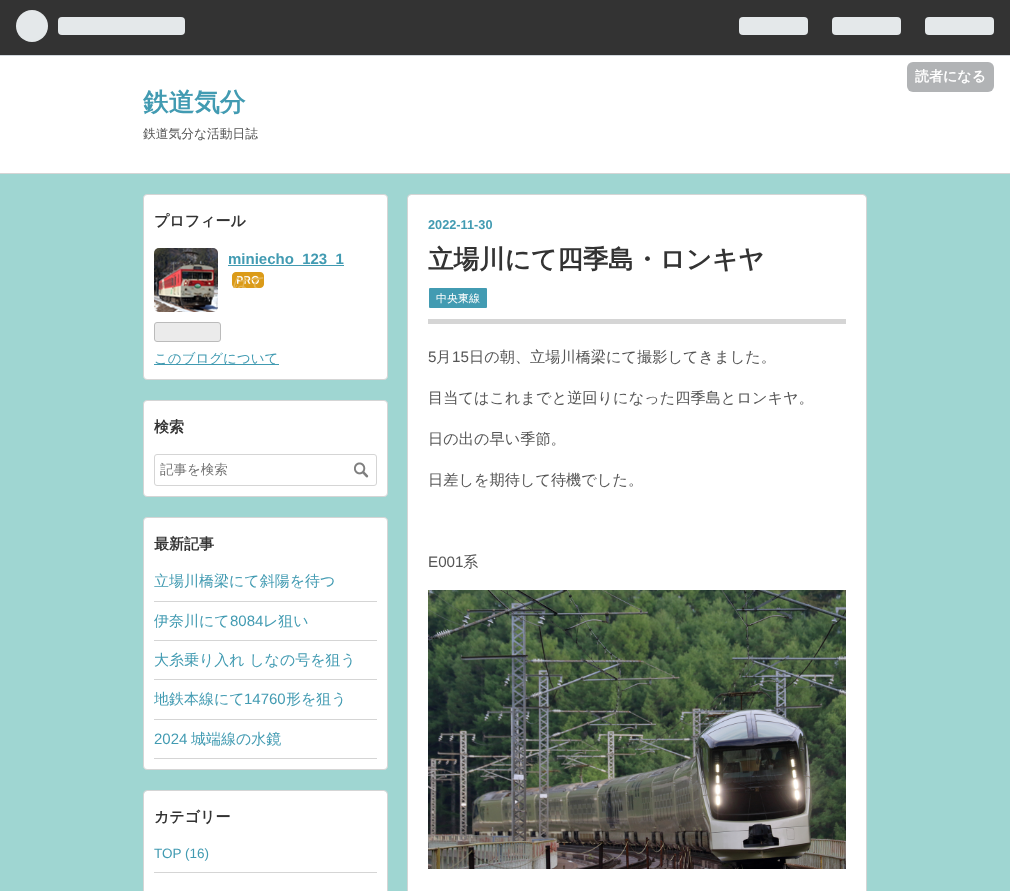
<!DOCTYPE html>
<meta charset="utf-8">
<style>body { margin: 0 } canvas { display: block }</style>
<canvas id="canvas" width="1010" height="891"></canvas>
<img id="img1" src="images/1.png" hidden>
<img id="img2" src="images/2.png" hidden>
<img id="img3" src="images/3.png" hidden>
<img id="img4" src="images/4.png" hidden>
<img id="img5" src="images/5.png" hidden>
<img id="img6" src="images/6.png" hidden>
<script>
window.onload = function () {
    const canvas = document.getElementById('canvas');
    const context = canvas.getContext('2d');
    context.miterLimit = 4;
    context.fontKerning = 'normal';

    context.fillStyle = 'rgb(159, 214, 210)';
    context.fillRect(0, 0, 1010, 891);
    context.fillStyle = 'rgb(51, 51, 51)';
    context.fillRect(0, 0, 1010, 55);
    context.fillStyle = 'rgb(210, 216, 221)';
    context.fillRect(0, 55, 1010, 1);
    context.drawImage(document.getElementById('img1'), 16, 10, 169, 32);
    context.drawImage(document.getElementById('img2'), 739, 17, 255, 18);
    context.fillStyle = 'rgb(255, 255, 255)';
    context.fillRect(0, 56, 1010, 117);
    context.fillStyle = 'rgb(177, 179, 181)';
    context.beginPath();
    context.roundRect(907, 62, 87, 30, 6);
    context.fill();
    context.fillStyle = 'rgb(213, 213, 213)';
    context.fillRect(0, 173, 1010, 1);
    context.fillStyle = 'rgb(255, 255, 255)';
    context.beginPath();
    context.roundRect(143.5, 194.5, 244, 185, 3.5);
    context.fill();
    context.strokeStyle = 'rgb(213, 213, 213)';
    context.stroke();
    context.drawImage(document.getElementById('img3'), 154, 248, 64, 64);
    context.fillStyle = 'rgb(66, 155, 178)';
    context.fillRect(228, 265, 116, 1);
    context.drawImage(document.getElementById('img4'), 232, 272, 32, 16);
    context.fillStyle = 'rgb(235, 235, 235)';
    context.beginPath();
    context.roundRect(154.5, 322.5, 66, 19, 2.5);
    context.fill();
    context.strokeStyle = 'rgb(187, 187, 187)';
    context.stroke();
    context.fillStyle = 'rgb(66, 155, 178)';
    context.fillRect(154, 364, 125, 1);
    context.fillStyle = 'rgb(255, 255, 255)';
    context.beginPath();
    context.roundRect(143.5, 400.5, 244, 96, 3.5);
    context.fill();
    context.strokeStyle = 'rgb(213, 213, 213)';
    context.stroke();
    context.beginPath();
    context.roundRect(154.5, 454.5, 222, 31, 2.5);
    context.stroke();
    context.drawImage(document.getElementById('img5'), 354, 462, 15, 16);
    context.beginPath();
    context.roundRect(143.5, 517.5, 244, 252, 3.5);
    context.fill();
    context.stroke();
    context.fillStyle = 'rgb(213, 213, 213)';
    context.fillRect(154, 601, 223, 1);
    context.fillRect(154, 640, 223, 1);
    context.fillRect(154, 679, 223, 1);
    context.fillRect(154, 719, 223, 1);
    context.fillRect(154, 758, 223, 1);
    context.fillStyle = 'rgb(255, 255, 255)';
    context.beginPath();
    context.roundRect(144, 791, 243, 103, 3);
    context.fill();
    context.beginPath();
    context.roundRect(143.5, 790.5, 244, 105, 3.5);
    context.stroke();
    context.fillStyle = 'rgb(213, 213, 213)';
    context.fillRect(154, 872, 223, 1);
    context.fillStyle = 'rgb(255, 255, 255)';
    context.beginPath();
    context.roundRect(408, 195, 458, 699, 3);
    context.fill();
    context.beginPath();
    context.roundRect(407.5, 194.5, 459, 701, 3.5);
    context.stroke();
    context.fillStyle = 'rgb(213, 213, 213)';
    context.fillRect(428, 319, 418, 5);
    context.fillStyle = 'rgb(66, 155, 178)';
    context.beginPath();
    context.roundRect(429, 288, 58, 20, 1);
    context.fill();
    context.drawImage(document.getElementById('img6'), 428, 590, 418, 279);
    context.font = 'bold 14px WenQuanYi Zen Hei';
    context.fillStyle = 'rgb(255, 255, 255)';
    context.fillText('読者になる', 915, 81);
    context.font = 'bold 25.6px WenQuanYi Zen Hei';
    context.fillStyle = 'rgb(66, 155, 178)';
    context.fillText('鉄道気分', 143, 111);
    context.font = '500 12.75px WenQuanYi Zen Hei';
    context.fillStyle = 'rgb(85, 85, 85)';
    context.fillText('鉄道気分な活動日誌', 143, 138);
    context.font = 'bold 15px WenQuanYi Zen Hei';
    context.fillStyle = 'rgb(51, 51, 51)';
    context.fillText('プロフィール', 154, 226);
    context.font = 'bold 15px Liberation Sans';
    context.fillStyle = 'rgb(66, 155, 178)';
    context.fillText('miniecho_123_1', 228, 264);
    context.save();
    context.beginPath();
    context.rect(232, 272, 32, 16);
    context.clip();
    context.font = 'italic bold 15px WenQuanYi Zen Hei';
    context.fillStyle = 'rgb(228, 181, 84)';
    context.fillText('はて', 232, 288);
    context.restore();
    context.font = '500 13.5px WenQuanYi Zen Hei';
    context.fillText('このブログについて', 154, 363);
    context.font = 'bold 15px WenQuanYi Zen Hei';
    context.fillStyle = 'rgb(51, 51, 51)';
    context.fillText('検索', 154, 432);
    context.font = '500 13.5px WenQuanYi Zen Hei';
    context.fillStyle = 'rgb(117, 117, 117)';
    context.fillText('記事を検索', 160, 474);
    context.font = 'bold 15px WenQuanYi Zen Hei';
    context.fillStyle = 'rgb(51, 51, 51)';
    context.fillText('最新記事', 154, 549);
    context.font = '500 15px WenQuanYi Zen Hei';
    context.fillStyle = 'rgb(66, 155, 178)';
    context.fillText('立場川橋梁にて斜陽を待つ', 154, 586);
    context.fillText('伊奈川にて', 154, 626);
    context.font = '15px Liberation Sans';
    context.fillText('8084', 230, 626);
    context.font = '500 15px WenQuanYi Zen Hei';
    context.fillText('レ狙い', 263, 626);
    context.fillText('大糸乗り入れ しなの号を狙う', 154, 665);
    context.fillText('地鉄本線にて', 154, 704);
    context.font = '15px Liberation Sans';
    context.fillText('14760', 244, 704);
    context.font = '500 15px WenQuanYi Zen Hei';
    context.fillText('形を狙う', 286, 704);
    context.font = '15px Liberation Sans';
    context.fillText('2024', 154, 744);
    context.font = '500 15px WenQuanYi Zen Hei';
    context.fillText('城端線の水鏡', 191, 744);
    context.font = 'bold 15px WenQuanYi Zen Hei';
    context.fillStyle = 'rgb(51, 51, 51)';
    context.fillText('カテゴリー', 154, 822);
    context.font = '13.5px Liberation Sans';
    context.fillStyle = 'rgb(66, 155, 178)';
    context.fillText('TOP (16)', 154, 858);
    context.font = 'bold 12.75px Liberation Sans';
    context.fillText('2022-11-30', 428, 229);
    context.font = 'bold 25.6px WenQuanYi Zen Hei';
    context.fillStyle = 'rgb(51, 51, 51)';
    context.fillText('立場川にて四季島・ロンキヤ', 428, 268);
    context.font = '500 11px WenQuanYi Zen Hei';
    context.fillStyle = 'rgb(255, 255, 255)';
    context.fillText('中央東線', 436, 302);
    context.font = '15.2px Liberation Sans';
    context.fillStyle = 'rgb(85, 85, 85)';
    context.fillText('5', 428, 362);
    context.font = '500 15.2px WenQuanYi Zen Hei';
    context.fillText('月', 436, 362);
    context.font = '15.2px Liberation Sans';
    context.fillText('15', 452, 362);
    context.font = '500 15.2px WenQuanYi Zen Hei';
    context.fillText('日の朝、立場川橋梁にて撮影してきました。', 469, 362);
    context.fillText('目当てはこれまでと逆回りになった四季島とロンキヤ。', 428, 403);
    context.fillText('日の出の早い季節。', 428, 444);
    context.fillText('日差しを期待して待機でした。', 428, 485);
    context.font = '15.2px Liberation Sans';
    context.fillText('E001', 428, 567);
    context.font = '500 15.2px WenQuanYi Zen Hei';
    context.fillText('系', 463, 567);
};
</script>
